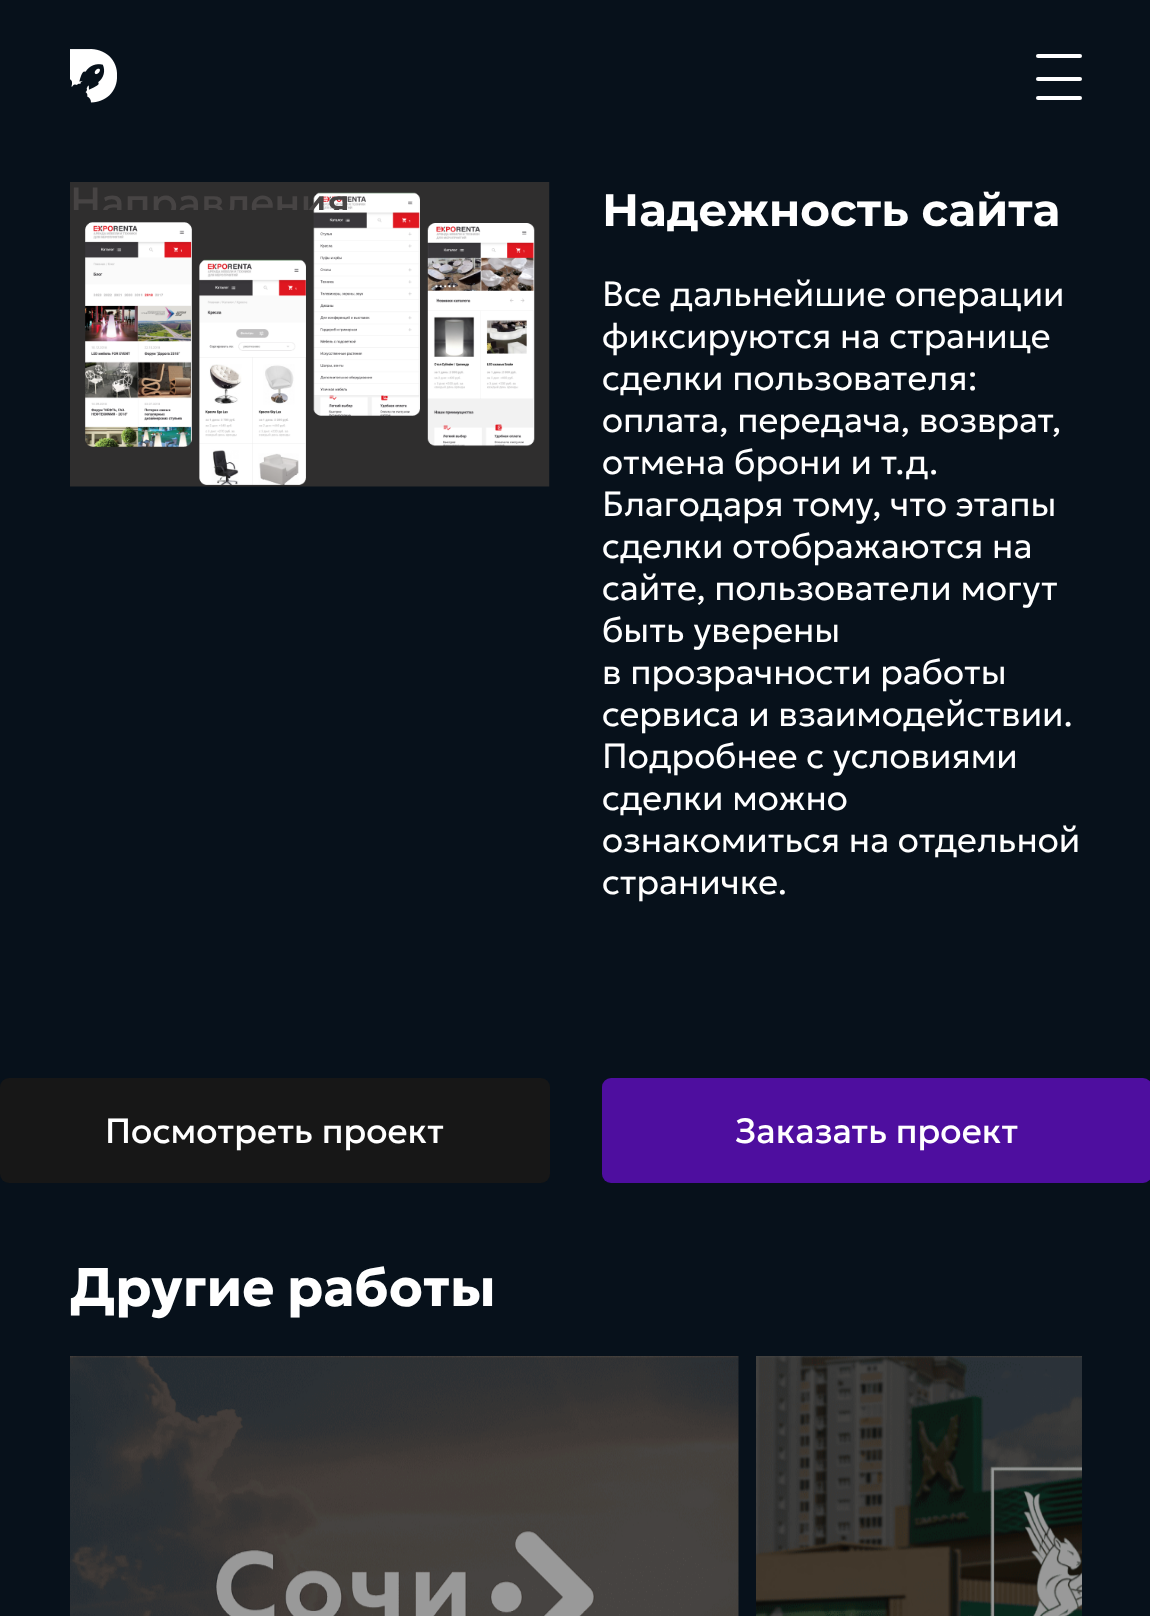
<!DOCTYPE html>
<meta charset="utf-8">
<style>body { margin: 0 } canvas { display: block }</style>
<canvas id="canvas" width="1150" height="1616"></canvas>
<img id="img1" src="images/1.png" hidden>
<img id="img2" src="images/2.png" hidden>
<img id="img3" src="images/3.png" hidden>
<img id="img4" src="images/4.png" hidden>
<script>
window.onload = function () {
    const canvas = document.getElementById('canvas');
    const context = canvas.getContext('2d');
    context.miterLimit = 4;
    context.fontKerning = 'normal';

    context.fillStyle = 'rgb(7, 17, 27)';
    context.fillRect(0, 0, 1150, 1616);
    context.drawImage(document.getElementById('img1'), 70, 49, 47, 54);
    context.fillStyle = 'rgb(255, 255, 255)';
    context.beginPath();
    context.roundRect(1036, 54, 46, 4, 2);
    context.fill();
    context.beginPath();
    context.roundRect(1036, 77, 46, 4, 2);
    context.fill();
    context.beginPath();
    context.roundRect(1036, 96, 46, 4, 2);
    context.fill();
    context.drawImage(document.getElementById('img2'), 70, 182, 480, 305);
    context.fillStyle = 'rgb(23, 23, 23)';
    context.beginPath();
    context.roundRect(0, 1078, 550, 105, 9);
    context.fill();
    context.fillStyle = 'rgb(78, 14, 159)';
    context.beginPath();
    context.roundRect(602, 1078, 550, 105, 9);
    context.fill();
    context.drawImage(document.getElementById('img3'), 70, 1356, 669, 260);
    context.drawImage(document.getElementById('img4'), 756, 1356, 326, 260);
    context.save();
    context.beginPath();
    context.rect(0, 0, 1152, 210);
    context.clip();
    context.font = '42px Geologica';
    context.fillStyle = 'rgb(71, 68, 68)';
    context.fillText('Направления', 70, 217);
    context.restore();
    context.font = '100 45.5px Montserrat';
    context.fillStyle = 'rgb(255, 255, 255)';
    context.fillText('Надежность сайта', 602, 226);
    context.font = '300 35px Geologica';
    context.fillText('Все дальнейшие операции', 602, 306);
    context.fillText('фиксируются на странице', 602, 348);
    context.fillText('сделки пользователя:', 602, 390);
    context.fillText('оплата, передача, возврат,', 602, 432);
    context.fillText('отмена брони и т.д.', 602, 474);
    context.fillText('Благодаря тому, что этапы', 602, 516);
    context.fillText('сделки отображаются на', 602, 558);
    context.fillText('сайте, пользователи могут', 602, 600);
    context.fillText('быть уверены', 602, 642);
    context.fillText('в прозрачности работы', 602, 684);
    context.fillText('сервиса и взаимодействии.', 602, 726);
    context.fillText('Подробнее с условиями', 602, 768);
    context.fillText('сделки можно', 602, 810);
    context.fillText('ознакомиться на отдельной', 602, 852);
    context.fillText('страничке.', 602, 894);
    context.font = '35px Geologica';
    context.fillText('Посмотреть проект', 105, 1143);
    context.fillText('Заказать проект', 735, 1143);
    context.font = 'bold 54.25px Geologica';
    context.fillText('Другие работы', 70, 1306);
};
</script>
